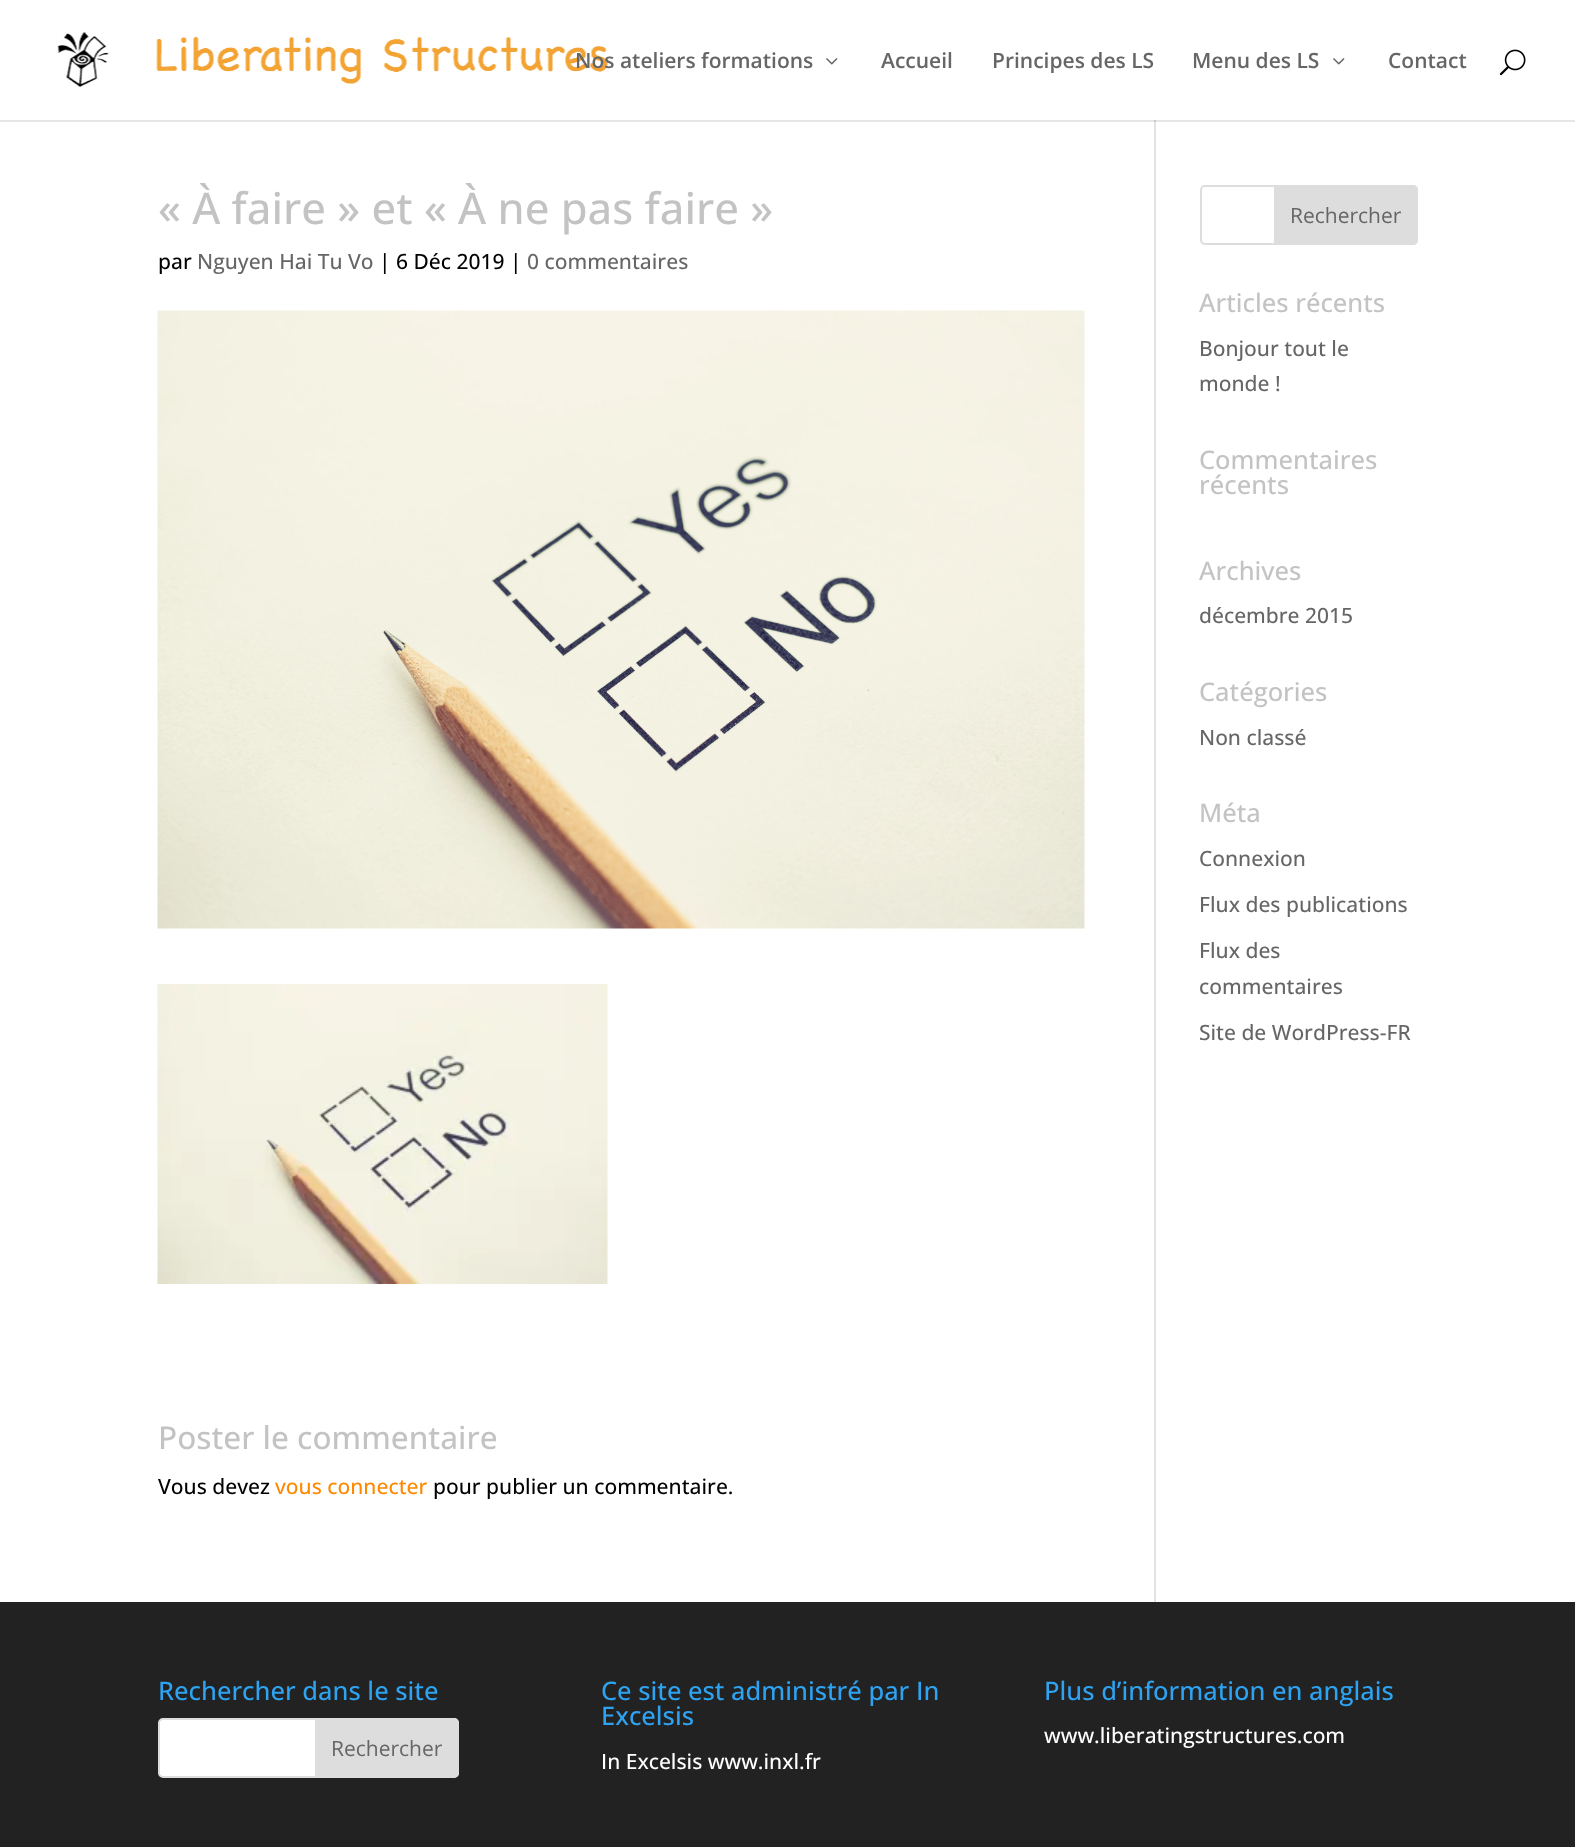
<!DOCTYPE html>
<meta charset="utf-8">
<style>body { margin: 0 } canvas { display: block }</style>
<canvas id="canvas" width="1575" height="1847"></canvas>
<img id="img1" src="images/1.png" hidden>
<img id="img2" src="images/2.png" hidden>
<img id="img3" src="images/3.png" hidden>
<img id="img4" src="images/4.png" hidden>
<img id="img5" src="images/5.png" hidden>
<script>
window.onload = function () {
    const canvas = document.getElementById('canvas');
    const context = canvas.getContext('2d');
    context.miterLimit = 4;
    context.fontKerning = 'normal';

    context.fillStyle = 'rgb(255, 255, 255)';
    context.fillRect(0, 0, 1575, 1847);
    context.fillStyle = 'rgb(230, 230, 230)';
    context.fillRect(0, 120, 1575, 2);
    context.drawImage(document.getElementById('img1'), 57, 32, 551, 55);
    context.drawImage(document.getElementById('img2'), 826, 58, 12, 7);
    context.drawImage(document.getElementById('img2'), 1333, 58, 12, 7);
    context.drawImage(document.getElementById('img3'), 1499, 49, 27, 27);
    context.fillStyle = 'rgb(226, 226, 226)';
    context.fillRect(1154, 122, 2, 1480);
    context.fillStyle = 'rgb(203, 203, 203)';
    context.fillRect(1154, 120, 2, 2);
    context.drawImage(document.getElementById('img4'), 157, 310, 928, 619);
    context.drawImage(document.getElementById('img5'), 157, 984, 451, 300);
    context.beginPath();
    context.roundRect(1201, 186, 216, 58, 4);
    context.strokeStyle = 'rgb(221, 221, 221)';
    context.lineWidth = 2;
    context.stroke();
    context.fillStyle = 'rgb(221, 221, 221)';
    context.beginPath();
    context.roundRect(1275, 186, 142, 58, [0, 4, 4, 0]);
    context.fill();
    context.stroke();
    context.fillStyle = 'rgb(34, 34, 34)';
    context.fillRect(0, 1602, 1575, 245);
    context.fillStyle = 'rgb(255, 255, 255)';
    context.beginPath();
    context.roundRect(159, 1719, 299, 58, 4);
    context.fill();
    context.stroke();
    context.fillStyle = 'rgb(221, 221, 221)';
    context.beginPath();
    context.roundRect(316, 1719, 142, 58, [0, 4, 4, 0]);
    context.fill();
    context.stroke();
    context.font = '600 21px Open Sans';
    context.fillStyle = 'rgb(102, 102, 102)';
    context.fillText('Nos ateliers formations', 575, 68);
    context.fillText('Accueil', 881, 68);
    context.fillText('Principes des LS', 992, 68);
    context.fillText('Menu des LS', 1192, 68);
    context.fillText('Contact', 1388, 68);
    context.font = '500 43.5px Open Sans';
    context.fillStyle = 'rgb(195, 195, 195)';
    context.fillText('« À faire » et « À ne pas faire »', 158, 224);
    context.font = '500 21px Open Sans';
    context.fillStyle = 'rgb(0, 0, 0)';
    context.fillText('par', 158, 269);
    context.fillStyle = 'rgb(102, 102, 102)';
    context.fillText('Nguyen Hai Tu Vo', 197, 269);
    context.fillStyle = 'rgb(0, 0, 0)';
    context.fillText('| 6 Déc 2019 |', 379, 269);
    context.fillStyle = 'rgb(102, 102, 102)';
    context.fillText('0 commentaires', 527, 269);
    context.font = '500 31.5px Open Sans';
    context.fillStyle = 'rgb(195, 195, 195)';
    context.fillText('Poster le commentaire', 158, 1449);
    context.font = '500 21px Open Sans';
    context.fillStyle = 'rgb(0, 0, 0)';
    context.fillText('Vous devez', 158, 1494);
    context.fillStyle = 'rgb(254, 137, 0)';
    context.fillText('vous connecter', 275, 1494);
    context.fillStyle = 'rgb(0, 0, 0)';
    context.fillText('pour publier un commentaire.', 433, 1494);
    context.font = '21px Open Sans';
    context.fillStyle = 'rgb(102, 102, 102)';
    context.fillText('Rechercher', 1290, 223);
    context.font = '500 25.5px Open Sans';
    context.fillStyle = 'rgb(195, 195, 195)';
    context.fillText('Articles récents', 1199, 312);
    context.font = '500 21px Open Sans';
    context.fillStyle = 'rgb(102, 102, 102)';
    context.fillText('Bonjour tout le', 1199, 356);
    context.fillText('monde !', 1199, 391);
    context.font = '500 25.5px Open Sans';
    context.fillStyle = 'rgb(195, 195, 195)';
    context.fillText('Commentaires', 1199, 469);
    context.fillText('récents', 1199, 494);
    context.fillText('Archives', 1199, 580);
    context.font = '500 21px Open Sans';
    context.fillStyle = 'rgb(102, 102, 102)';
    context.fillText('décembre 2015', 1199, 623);
    context.font = '500 25.5px Open Sans';
    context.fillStyle = 'rgb(195, 195, 195)';
    context.fillText('Catégories', 1199, 701);
    context.font = '500 21px Open Sans';
    context.fillStyle = 'rgb(102, 102, 102)';
    context.fillText('Non classé', 1199, 745);
    context.font = '500 25.5px Open Sans';
    context.fillStyle = 'rgb(195, 195, 195)';
    context.fillText('Méta', 1199, 822);
    context.font = '500 21px Open Sans';
    context.fillStyle = 'rgb(102, 102, 102)';
    context.fillText('Connexion', 1199, 866);
    context.fillText('Flux des publications', 1199, 912);
    context.fillText('Flux des', 1199, 958);
    context.fillText('commentaires', 1199, 994);
    context.fillText('Site de WordPress-FR', 1199, 1040);
    context.font = '500 25.5px Open Sans';
    context.fillStyle = 'rgb(46, 163, 242)';
    context.fillText('Rechercher dans le site', 158, 1700);
    context.font = '21px Open Sans';
    context.fillStyle = 'rgb(102, 102, 102)';
    context.fillText('Rechercher', 331, 1756);
    context.font = '500 25.5px Open Sans';
    context.fillStyle = 'rgb(46, 163, 242)';
    context.fillText('Ce site est administré par In', 601, 1700);
    context.fillText('Excelsis', 601, 1725);
    context.font = '500 21px Open Sans';
    context.fillStyle = 'rgb(255, 255, 255)';
    context.fillText('In Excelsis www.inxl.fr', 601, 1769);
    context.font = '500 25.5px Open Sans';
    context.fillStyle = 'rgb(46, 163, 242)';
    context.fillText('Plus d’information en anglais', 1044, 1700);
    context.font = '500 21px Open Sans';
    context.fillStyle = 'rgb(255, 255, 255)';
    context.fillText('www.liberatingstructures.com', 1044, 1743);
};
</script>
